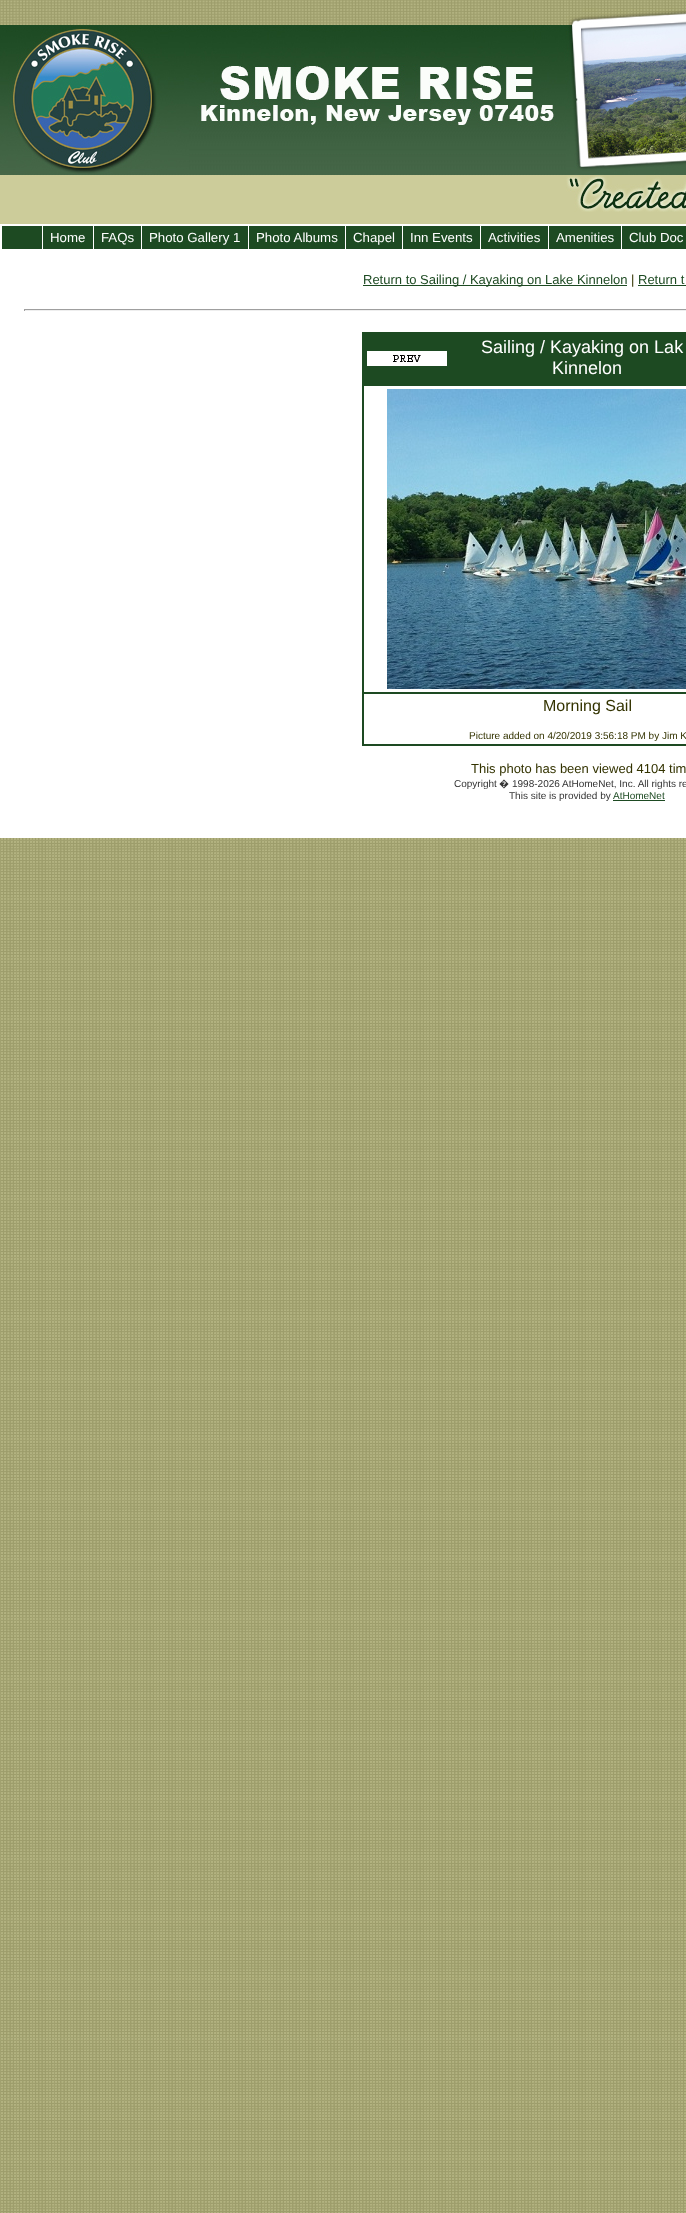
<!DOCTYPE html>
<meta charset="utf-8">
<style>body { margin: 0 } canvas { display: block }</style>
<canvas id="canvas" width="686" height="2213"></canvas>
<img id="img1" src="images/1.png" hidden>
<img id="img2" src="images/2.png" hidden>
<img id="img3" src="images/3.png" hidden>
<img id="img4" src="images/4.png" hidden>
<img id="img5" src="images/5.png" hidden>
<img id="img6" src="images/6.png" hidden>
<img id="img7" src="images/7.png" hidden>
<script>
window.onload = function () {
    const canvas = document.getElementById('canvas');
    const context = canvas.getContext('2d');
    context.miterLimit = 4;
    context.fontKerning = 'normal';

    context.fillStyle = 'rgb(255, 255, 255)';
    context.fillRect(0, 0, 686, 2213);
    context.drawImage(document.getElementById('img1'), 0, 838, 686, 1375);
    context.drawImage(document.getElementById('img2'), 0, 0, 686, 224);
    context.drawImage(document.getElementById('img3'), 0, 0, 189, 174);
    context.drawImage(document.getElementById('img4'), 189, 0, 376, 128);
    context.drawImage(document.getElementById('img5'), 566, 0, 120, 212);
    context.fillStyle = 'rgb(29, 74, 34)';
    context.fillRect(2, 226, 684, 23);
    context.fillStyle = 'rgb(255, 255, 255)';
    context.fillRect(93, 226, 1, 23);
    context.fillRect(42, 226, 1, 23);
    context.fillRect(141, 226, 1, 23);
    context.fillRect(248, 226, 1, 23);
    context.fillRect(345, 226, 1, 23);
    context.fillRect(402, 226, 1, 23);
    context.fillRect(480, 226, 1, 23);
    context.fillRect(548, 226, 1, 23);
    context.fillRect(621, 226, 1, 23);
    context.fillStyle = 'rgb(29, 74, 34)';
    context.fillRect(363, 285, 264, 1);
    context.fillRect(638, 285, 48, 1);
    context.fillStyle = 'rgb(159, 159, 159)';
    context.fillRect(24, 309, 662, 1);
    context.fillStyle = 'rgb(238, 238, 238)';
    context.fillRect(24, 310, 662, 1);
    context.fillStyle = 'rgb(159, 159, 159)';
    context.fillRect(24, 309, 1, 2);
    context.strokeStyle = 'rgb(29, 74, 34)';
    context.strokeRect(362.5, 332.5, 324, 51);
    context.fillStyle = 'rgb(29, 74, 34)';
    context.fillRect(363, 333, 323, 50);
    context.drawImage(document.getElementById('img6'), 367, 351, 80, 15);
    context.strokeRect(362.5, 384.5, 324, 361);
    context.strokeRect(363.5, 385.5, 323, 307);
    context.drawImage(document.getElementById('img7'), 387, 389, 299, 300);
    context.strokeRect(363.5, 693.5, 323, 51);
    context.fillRect(613, 800, 52, 1);
    context.font = '13.25px Liberation Sans';
    context.fillStyle = 'rgb(255, 255, 255)';
    context.fillText('Home', 50, 242);
    context.fillText('FAQs', 101, 242);
    context.fillText('Photo Gallery 1', 149, 242);
    context.fillText('Photo Albums', 256, 242);
    context.fillText('Chapel', 353, 242);
    context.fillText('Inn Events', 410, 242);
    context.fillText('Activities', 488, 242);
    context.fillText('Amenities', 556, 242);
    context.fillText('Club Doc', 629, 242);
    context.font = '13px Liberation Sans';
    context.fillStyle = 'rgb(29, 74, 34)';
    context.fillText('Return to Sailing / Kayaking on Lake Kinnelon', 363, 284);
    context.fillStyle = 'rgb(51, 51, 0)';
    context.fillText('|', 631, 284);
    context.fillStyle = 'rgb(29, 74, 34)';
    context.fillText('Return t', 638, 284);
    context.font = '18px Liberation Sans';
    context.fillStyle = 'rgb(255, 255, 255)';
    context.fillText('Sailing / Kayaking on Lak', 481, 353);
    context.fillText('Kinnelon', 552, 374);
    context.font = '16px Liberation Sans';
    context.fillStyle = 'rgb(51, 51, 0)';
    context.fillText('Morning Sail', 543, 711);
    context.font = '10px Liberation Sans';
    context.fillText('Picture added on 4/20/2019 3:56:18 PM by Jim K', 469, 739);
    context.font = '13px Liberation Sans';
    context.fillText('This photo has been viewed 4104 tim', 471, 773);
    context.font = '10px Liberation Sans';
    context.fillStyle = 'rgb(51, 51, 51)';
    context.fillText('Copyright', 454, 787);
    context.font = '10px Noto Sans';
    context.fillText('�', 499, 787);
    context.font = '10px Liberation Sans';
    context.fillText('1998-2026 AtHomeNet, Inc. All rights re', 512, 787);
    context.fillText('This site is provided by', 509, 799);
    context.fillStyle = 'rgb(29, 74, 34)';
    context.fillText('AtHomeNet', 613, 799);
};
</script>
